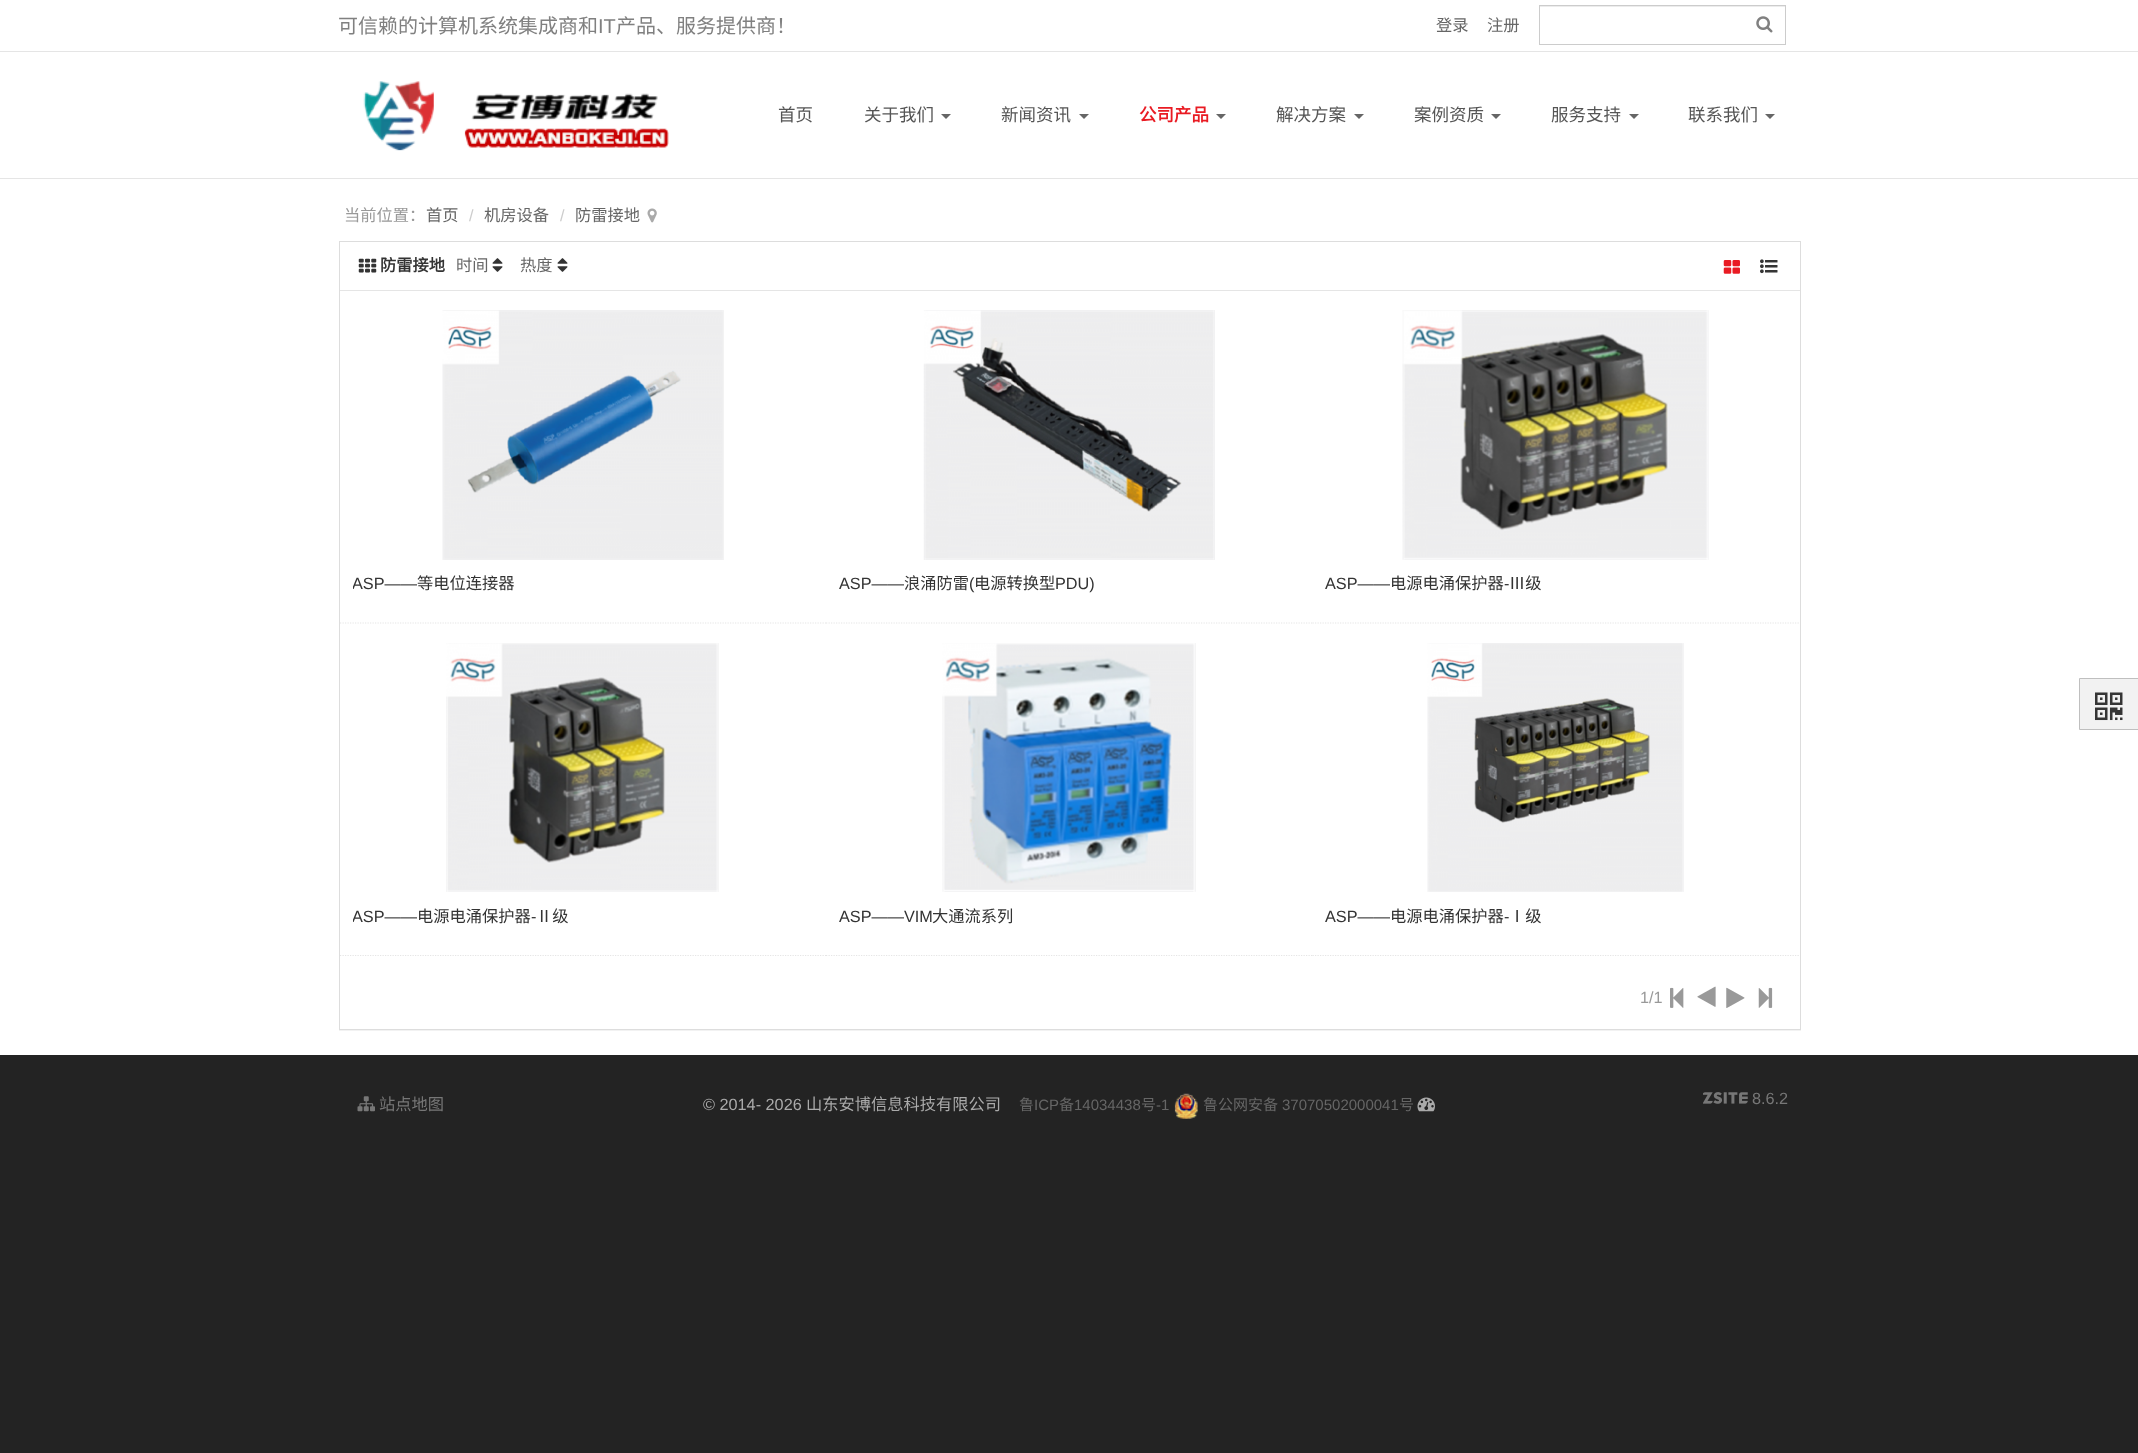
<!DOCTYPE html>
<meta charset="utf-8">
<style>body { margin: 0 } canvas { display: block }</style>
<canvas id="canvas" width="2138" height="1453"></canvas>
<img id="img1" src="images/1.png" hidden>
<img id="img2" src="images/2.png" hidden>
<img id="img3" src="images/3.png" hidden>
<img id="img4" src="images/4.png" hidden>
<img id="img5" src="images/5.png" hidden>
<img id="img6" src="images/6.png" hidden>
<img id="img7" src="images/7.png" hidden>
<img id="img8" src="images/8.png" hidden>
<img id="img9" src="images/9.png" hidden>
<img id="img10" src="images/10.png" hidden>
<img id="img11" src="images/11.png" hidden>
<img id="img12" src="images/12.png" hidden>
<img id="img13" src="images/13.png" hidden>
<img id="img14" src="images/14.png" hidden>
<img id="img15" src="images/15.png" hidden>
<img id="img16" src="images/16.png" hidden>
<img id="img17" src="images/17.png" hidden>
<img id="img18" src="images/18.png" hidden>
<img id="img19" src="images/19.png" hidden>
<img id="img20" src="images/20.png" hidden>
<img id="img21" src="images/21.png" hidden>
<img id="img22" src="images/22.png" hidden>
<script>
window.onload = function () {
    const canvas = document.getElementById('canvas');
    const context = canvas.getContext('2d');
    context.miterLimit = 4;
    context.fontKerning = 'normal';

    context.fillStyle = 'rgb(35, 35, 35)';
    context.fillRect(0, 0, 2138, 1453);
    context.fillStyle = 'rgb(255, 255, 255)';
    context.fillRect(0, 0, 2138, 1055);
    context.fillStyle = 'rgb(229, 229, 229)';
    context.fillRect(0, 178, 2138, 1);
    context.fillRect(0, 51, 2138, 1);
    context.fillStyle = 'rgb(236, 236, 236)';
    context.fillRect(1540, 6, 245, 1);
    context.strokeStyle = 'rgb(204, 204, 204)';
    context.strokeRect(1539.5, 5.5, 246, 39);
    context.drawImage(document.getElementById('img1'), 1756, 16, 17, 17);
    context.drawImage(document.getElementById('img2'), 363, 81, 306, 70);
    context.fillStyle = 'rgb(102, 102, 102)';
    context.beginPath();
    context.moveTo(941, 114);
    context.lineTo(951, 114);
    context.lineTo(946, 119);
    context.closePath();
    context.fill();
    context.beginPath();
    context.moveTo(1079, 114);
    context.lineTo(1089, 114);
    context.lineTo(1084, 119);
    context.closePath();
    context.fill();
    context.beginPath();
    context.moveTo(1216, 114);
    context.lineTo(1226, 114);
    context.lineTo(1221, 119);
    context.closePath();
    context.fill();
    context.beginPath();
    context.moveTo(1354, 114);
    context.lineTo(1364, 114);
    context.lineTo(1359, 119);
    context.closePath();
    context.fill();
    context.beginPath();
    context.moveTo(1491, 114);
    context.lineTo(1501, 114);
    context.lineTo(1496, 119);
    context.closePath();
    context.fill();
    context.beginPath();
    context.moveTo(1629, 114);
    context.lineTo(1639, 114);
    context.lineTo(1634, 119);
    context.closePath();
    context.fill();
    context.beginPath();
    context.moveTo(1765, 114);
    context.lineTo(1775, 114);
    context.lineTo(1770, 119);
    context.closePath();
    context.fill();
    context.drawImage(document.getElementById('img3'), 647, 208, 10, 15);
    context.save();
    context.beginPath();
    context.rect(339, 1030, 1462, 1);
    context.clip();
    context.fillStyle = 'rgba(0, 0, 0, 0.05)';
    context.filter = 'blur(0.5px)';
    context.beginPath();
    context.rect(339, 243, 1462, 788);
    context.fill();
    context.filter = 'none';
    context.restore();
    context.strokeStyle = 'rgb(221, 221, 221)';
    context.strokeRect(339.5, 241.5, 1461, 788);
    context.fillStyle = 'rgb(229, 229, 229)';
    context.fillRect(340, 290, 1460, 1);
    context.drawImage(document.getElementById('img4'), 358, 258, 19, 15);
    context.drawImage(document.getElementById('img5'), 492, 258, 11, 14);
    context.drawImage(document.getElementById('img5'), 557, 258, 11, 14);
    context.drawImage(document.getElementById('img6'), 1723, 260, 17, 14);
    context.drawImage(document.getElementById('img7'), 1760, 259, 18, 15);
    context.beginPath();
    context.moveTo(340, 623);
    context.lineTo(826, 623);
    context.strokeStyle = 'rgb(229, 229, 229)';
    context.lineWidth = 1.2;
    context.setLineDash([1.25, 1.25]);
    context.stroke();
    context.drawImage(document.getElementById('img8'), 442, 310, 282, 250);
    context.beginPath();
    context.moveTo(826, 623);
    context.lineTo(1312.5, 623);
    context.stroke();
    context.drawImage(document.getElementById('img9'), 923, 310, 292, 250);
    context.beginPath();
    context.moveTo(1312.5, 623);
    context.lineTo(1799, 623);
    context.stroke();
    context.drawImage(document.getElementById('img10'), 1402, 310, 307, 250);
    context.beginPath();
    context.moveTo(340, 955.5);
    context.lineTo(826, 955.5);
    context.stroke();
    context.drawImage(document.getElementById('img11'), 446, 643, 273, 249);
    context.beginPath();
    context.moveTo(826, 955.5);
    context.lineTo(1312.5, 955.5);
    context.stroke();
    context.drawImage(document.getElementById('img12'), 942, 643, 254, 249);
    context.beginPath();
    context.moveTo(1312.5, 955.5);
    context.lineTo(1799, 955.5);
    context.stroke();
    context.drawImage(document.getElementById('img13'), 1427, 643, 257, 249);
    context.drawImage(document.getElementById('img14'), 1670, 987, 14, 21);
    context.drawImage(document.getElementById('img15'), 1697, 986, 19, 21);
    context.drawImage(document.getElementById('img16'), 1726, 987, 19, 21);
    context.drawImage(document.getElementById('img17'), 1758, 987, 15, 21);
    context.drawImage(document.getElementById('img18'), 357, 1096, 18, 16);
    context.drawImage(document.getElementById('img19'), 1174, 1093, 24, 26);
    context.drawImage(document.getElementById('img20'), 1417, 1097, 18, 15);
    context.drawImage(document.getElementById('img21'), 1703, 1092, 45, 12);
    context.fillStyle = 'rgb(242, 242, 242)';
    context.beginPath();
    context.rect(2079.5, 678.5, 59, 51);
    context.fill();
    context.strokeStyle = 'rgb(191, 191, 191)';
    context.lineWidth = 1;
    context.setLineDash([]);
    context.stroke();
    context.drawImage(document.getElementById('img22'), 2095, 692, 28, 29);
    context.font = '20px Noto Sans CJK SC';
    context.fillStyle = 'rgb(128, 128, 128)';
    context.fillText('可信赖的计算机系统集成商和', 338, 33);
    context.font = '20px Liberation Sans';
    context.fillText('IT', 598, 33);
    context.font = '20px Noto Sans CJK SC';
    context.fillText('产品、服务提供商！', 616, 33);
    context.font = '16.25px Noto Sans CJK SC';
    context.fillStyle = 'rgb(102, 102, 102)';
    context.fillText('登录', 1436, 31);
    context.fillText('注册', 1487, 31);
    context.font = '17.5px Noto Sans CJK SC';
    context.fillStyle = 'rgb(85, 85, 85)';
    context.fillText('首页', 778, 121);
    context.fillText('关于我们', 864, 121);
    context.fillText('新闻资讯', 1001, 121);
    context.font = 'bold 17.5px Noto Sans CJK SC';
    context.fillStyle = 'rgb(233, 27, 35)';
    context.fillText('公司产品', 1139, 121);
    context.font = '17.5px Noto Sans CJK SC';
    context.fillStyle = 'rgb(85, 85, 85)';
    context.fillText('解决方案', 1276, 121);
    context.fillText('案例资质', 1414, 121);
    context.fillText('服务支持', 1551, 121);
    context.fillText('联系我们', 1688, 121);
    context.font = '16.25px Noto Sans CJK SC';
    context.fillStyle = 'rgb(153, 153, 153)';
    context.fillText('当前位置：', 344, 221);
    context.fillStyle = 'rgb(102, 102, 102)';
    context.fillText('首页', 426, 221);
    context.font = '16.25px Liberation Sans';
    context.fillStyle = 'rgb(204, 204, 204)';
    context.fillText('/', 469, 221);
    context.font = '16.25px Noto Sans CJK SC';
    context.fillStyle = 'rgb(102, 102, 102)';
    context.fillText('机房设备', 484, 221);
    context.font = '16.25px Liberation Sans';
    context.fillStyle = 'rgb(204, 204, 204)';
    context.fillText('/', 560, 221);
    context.font = '16.25px Noto Sans CJK SC';
    context.fillStyle = 'rgb(102, 102, 102)';
    context.fillText('防雷接地', 575, 221);
    context.font = 'bold 16.25px Noto Sans CJK SC';
    context.fillStyle = 'rgb(51, 51, 51)';
    context.fillText('防雷接地', 380, 271);
    context.font = '16.25px Noto Sans CJK SC';
    context.fillStyle = 'rgb(102, 102, 102)';
    context.fillText('时间', 456, 271);
    context.fillText('热度', 520, 271);
    context.save();
    context.beginPath();
    context.roundRect(353, 310, 461, 294, 5);
    context.clip();
    context.font = '16.25px Liberation Sans';
    context.fillStyle = 'rgb(51, 51, 51)';
    context.fillText('ASP——', 352, 589);
    context.restore();
    context.fillStyle = 'rgb(51, 51, 51)';
    context.fillText('等电位连接器', 417, 589);
    context.font = '16.25px Liberation Sans';
    context.fillText('ASP——', 839, 589);
    context.font = '16.25px Noto Sans CJK SC';
    context.fillText('浪涌防雷', 904, 589);
    context.font = '16.25px Liberation Sans';
    context.fillText('(', 969, 589);
    context.font = '16.25px Noto Sans CJK SC';
    context.fillText('电源转换型', 974, 589);
    context.font = '16.25px Liberation Sans';
    context.fillText('PDU)', 1055, 589);
    context.fillText('ASP——', 1325, 589);
    context.font = '16.25px Noto Sans CJK SC';
    context.fillText('电源电涌保护器', 1390, 589);
    context.font = '16.25px Liberation Sans';
    context.fillText('-', 1504, 589);
    context.font = '16.25px Noto Sans CJK SC';
    context.fillText('Ⅲ级', 1509, 589);
    context.save();
    context.beginPath();
    context.roundRect(353, 643, 461, 293, 5);
    context.clip();
    context.font = '16.25px Liberation Sans';
    context.fillText('ASP——', 352, 922);
    context.restore();
    context.fillText('电源电涌保护器', 417, 922);
    context.font = '16.25px Liberation Sans';
    context.fillText('-', 531, 922);
    context.font = '16.25px Noto Sans CJK SC';
    context.fillText('Ⅱ级', 536, 922);
    context.font = '16.25px Liberation Sans';
    context.fillText('ASP——VIM', 839, 922);
    context.font = '16.25px Noto Sans CJK SC';
    context.fillText('大通流系列', 932, 922);
    context.font = '16.25px Liberation Sans';
    context.fillText('ASP——', 1325, 922);
    context.font = '16.25px Noto Sans CJK SC';
    context.fillText('电源电涌保护器', 1390, 922);
    context.font = '16.25px Liberation Sans';
    context.fillText('-', 1504, 922);
    context.font = '16.25px Noto Sans CJK SC';
    context.fillText('Ⅰ级', 1509, 922);
    context.font = '16.25px Liberation Sans';
    context.fillStyle = 'rgb(153, 153, 153)';
    context.fillText('1/1', 1640, 1003);
    context.font = '16.25px Noto Sans CJK SC';
    context.fillStyle = 'rgb(119, 119, 119)';
    context.fillText('站点地图', 379, 1110);
    context.font = '16.25px Liberation Sans';
    context.fillStyle = 'rgb(170, 170, 170)';
    context.fillText('© 2014- 2026', 703, 1110);
    context.font = '16.25px Noto Sans CJK SC';
    context.fillText('山东安博信息科技有限公司', 806, 1110);
    context.font = '15px Noto Sans CJK SC';
    context.fillStyle = 'rgb(102, 102, 102)';
    context.fillText('鲁', 1019, 1110);
    context.font = '15px Liberation Sans';
    context.fillText('ICP', 1034, 1110);
    context.font = '15px Noto Sans CJK SC';
    context.fillText('备', 1059, 1110);
    context.font = '15px Liberation Sans';
    context.fillText('14034438', 1074, 1110);
    context.font = '15px Noto Sans CJK SC';
    context.fillText('号', 1141, 1110);
    context.font = '15px Liberation Sans';
    context.fillText('-1', 1156, 1110);
    context.font = '15px Noto Sans CJK SC';
    context.fillText('鲁公网安备', 1203, 1110);
    context.font = '15px Liberation Sans';
    context.fillText('37070502000041', 1282, 1110);
    context.font = '15px Noto Sans CJK SC';
    context.fillText('号', 1399, 1110);
    context.font = '16.25px Liberation Sans';
    context.fillStyle = 'rgb(119, 119, 119)';
    context.fillText('8.6.2', 1752, 1104);
};
</script>
